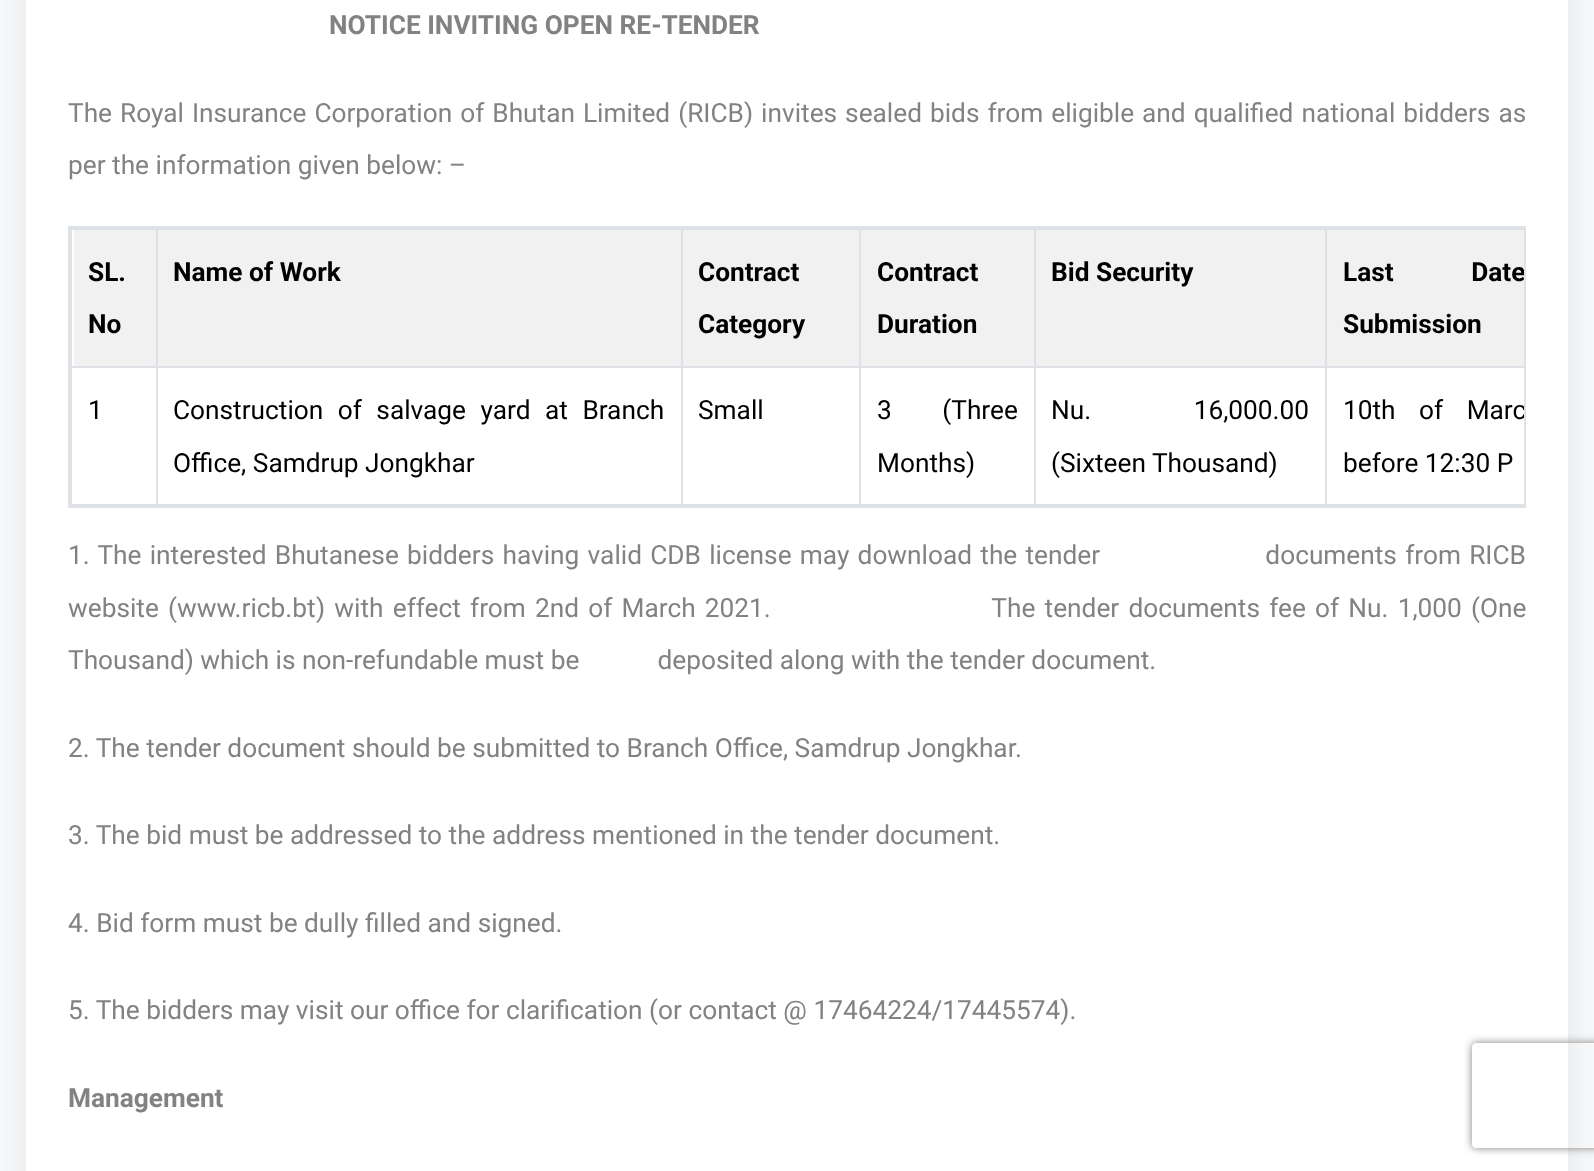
<!DOCTYPE html>
<meta charset="utf-8">
<style>body { margin: 0 } canvas { display: block }</style>
<canvas id="canvas" width="1594" height="1171"></canvas>
<script>
window.onload = function () {
    const canvas = document.getElementById('canvas');
    const context = canvas.getContext('2d');
    context.miterLimit = 4;
    context.fontKerning = 'normal';

    context.fillStyle = 'rgb(248, 249, 250)';
    context.fillRect(0, 0, 1594, 1171);
    context.fillStyle = 'rgba(0, 0, 0, 0.08)';
    context.filter = 'blur(17.5px)';
    context.beginPath();
    context.rect(26, -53, 1542, 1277);
    context.fill();
    context.filter = 'none';
    context.fillStyle = 'rgb(255, 255, 255)';
    context.fillRect(26, 0, 1542, 1171);
    context.strokeStyle = 'rgb(222, 226, 230)';
    context.lineWidth = 2;
    context.strokeRect(69, 227, 1456, 280);
    context.fillStyle = 'rgb(241, 241, 241)';
    context.fillRect(74, 230, 1450, 136);
    context.fillStyle = 'rgb(222, 226, 230)';
    context.fillRect(1325, 228, 199, 2);
    context.fillRect(1325, 366, 199, 2);
    context.fillRect(1325, 504, 199, 2);
    context.fillRect(1325, 366, 2, 140);
    context.fillRect(1034, 366, 293, 2);
    context.fillRect(1325, 228, 2, 140);
    context.fillRect(1034, 228, 293, 2);
    context.fillRect(1034, 504, 293, 2);
    context.fillRect(1034, 366, 2, 140);
    context.fillRect(859, 366, 177, 2);
    context.fillRect(1034, 228, 2, 140);
    context.fillRect(859, 228, 177, 2);
    context.fillRect(859, 504, 177, 2);
    context.fillRect(859, 366, 2, 140);
    context.fillRect(681, 366, 180, 2);
    context.fillRect(859, 228, 2, 140);
    context.fillRect(681, 228, 180, 2);
    context.fillRect(681, 504, 180, 2);
    context.fillRect(681, 366, 2, 140);
    context.fillRect(156, 366, 527, 2);
    context.fillRect(681, 228, 2, 140);
    context.fillRect(156, 228, 527, 2);
    context.fillRect(156, 504, 527, 2);
    context.fillRect(156, 366, 2, 140);
    context.fillRect(70, 366, 88, 2);
    context.fillRect(156, 228, 2, 140);
    context.fillRect(70, 228, 88, 2);
    context.fillRect(70, 504, 88, 2);
    context.fillRect(70, 366, 2, 140);
    context.fillRect(70, 228, 2, 140);
    context.save();
    context.beginPath();
    context.moveTo(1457, 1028);
    context.lineTo(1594, 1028);
    context.lineTo(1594, 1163);
    context.lineTo(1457, 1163);
    context.closePath();
    context.moveTo(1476, 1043);
    context.lineTo(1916, 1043);
    context.bezierCurveTo(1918, 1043, 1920, 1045, 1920, 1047);
    context.lineTo(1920, 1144);
    context.bezierCurveTo(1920, 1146, 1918, 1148, 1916, 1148);
    context.lineTo(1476, 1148);
    context.bezierCurveTo(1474, 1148, 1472, 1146, 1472, 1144);
    context.lineTo(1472, 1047);
    context.bezierCurveTo(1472, 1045, 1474, 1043, 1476, 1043);
    context.closePath();
    context.clip('evenodd');
    context.fillStyle = 'rgb(128, 128, 128)';
    context.filter = 'blur(4.5px)';
    context.beginPath();
    context.roundRect(1472, 1043, 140, 105, 4);
    context.fill();
    context.filter = 'none';
    context.restore();
    context.font = 'bold 26.25px Roboto';
    context.fillStyle = 'rgb(130, 130, 130)';
    context.fillText('NOTICE INVITING OPEN RE-TENDER', 329, 34);
    context.wordSpacing = '1.5px';
    context.font = '26.25px Roboto';
    context.fillText('The Royal Insurance Corporation of Bhutan Limited (RICB) invites sealed bids from eligible and qualified national bidders as', 68, 122);
    context.wordSpacing = '0px';
    context.fillText('per the information given below: –', 68, 174);
    context.font = 'bold 26.25px Roboto';
    context.fillStyle = 'rgb(0, 0, 0)';
    context.fillText('SL.', 88, 281);
    context.fillText('No', 88, 333);
    context.fillText('Name of Work', 173, 281);
    context.fillText('Contract', 698, 281);
    context.fillText('Category', 698, 333);
    context.fillText('Contract', 877, 281);
    context.fillText('Duration', 877, 333);
    context.fillText('Bid Security', 1051, 281);
    context.save();
    context.beginPath();
    context.rect(70, 228, 1454, 278);
    context.clip();
    context.wordSpacing = '71px';
    context.fillText('Last Date', 1343, 281);
    context.restore();
    context.fillText('Submission', 1343, 333);
    context.font = '26.25px Roboto';
    context.fillText('1', 88, 419);
    context.wordSpacing = '8px';
    context.fillText('Construction of salvage yard at Branch', 173, 419);
    context.wordSpacing = '0px';
    context.fillText('Office, Samdrup Jongkhar', 173, 472);
    context.fillText('Small', 698, 419);
    context.wordSpacing = '44px';
    context.fillText('3 (Three', 877, 419);
    context.wordSpacing = '0px';
    context.fillText('Months)', 877, 472);
    context.wordSpacing = '96px';
    context.fillText('Nu. 16,000.00', 1051, 419);
    context.wordSpacing = '0px';
    context.fillText('(Sixteen Thousand)', 1051, 472);
    context.save();
    context.beginPath();
    context.rect(70, 228, 1454, 278);
    context.clip();
    context.wordSpacing = '17px';
    context.fillText('10th of Marc', 1343, 419);
    context.restore();
    context.fillText('before 12:30 P', 1343, 472);
    context.wordSpacing = '1.75px';
    context.fillStyle = 'rgb(130, 130, 130)';
    context.fillText('1. The interested Bhutanese bidders having valid CDB license may download the tender                    documents from RICB', 68, 564);
    context.wordSpacing = '2.7px';
    context.fillText('website (', 68, 617);
    context.wordSpacing = '0px';
    context.fillText('www.ricb.bt', 177, 617);
    context.wordSpacing = '2.7px';
    context.fillText(') with effect from 2nd of March 2021.                        The tender documents fee of Nu. 1,000 (One', 316, 617);
    context.wordSpacing = '0px';
    context.fillText('Thousand) which is non-refundable must be            deposited along with the tender document.', 68, 669);
    context.fillText('2. The tender document should be submitted to Branch Office, Samdrup Jongkhar.', 68, 757);
    context.fillText('3. The bid must be addressed to the address mentioned in the tender document.', 68, 844);
    context.fillText('4. Bid form must be dully filled and signed.', 68, 932);
    context.fillText('5. The bidders may visit our office for clarification (or contact @ 17464224/17445574).', 68, 1019);
    context.font = 'bold 26.25px Roboto';
    context.fillText('Management', 68, 1107);
};
</script>
